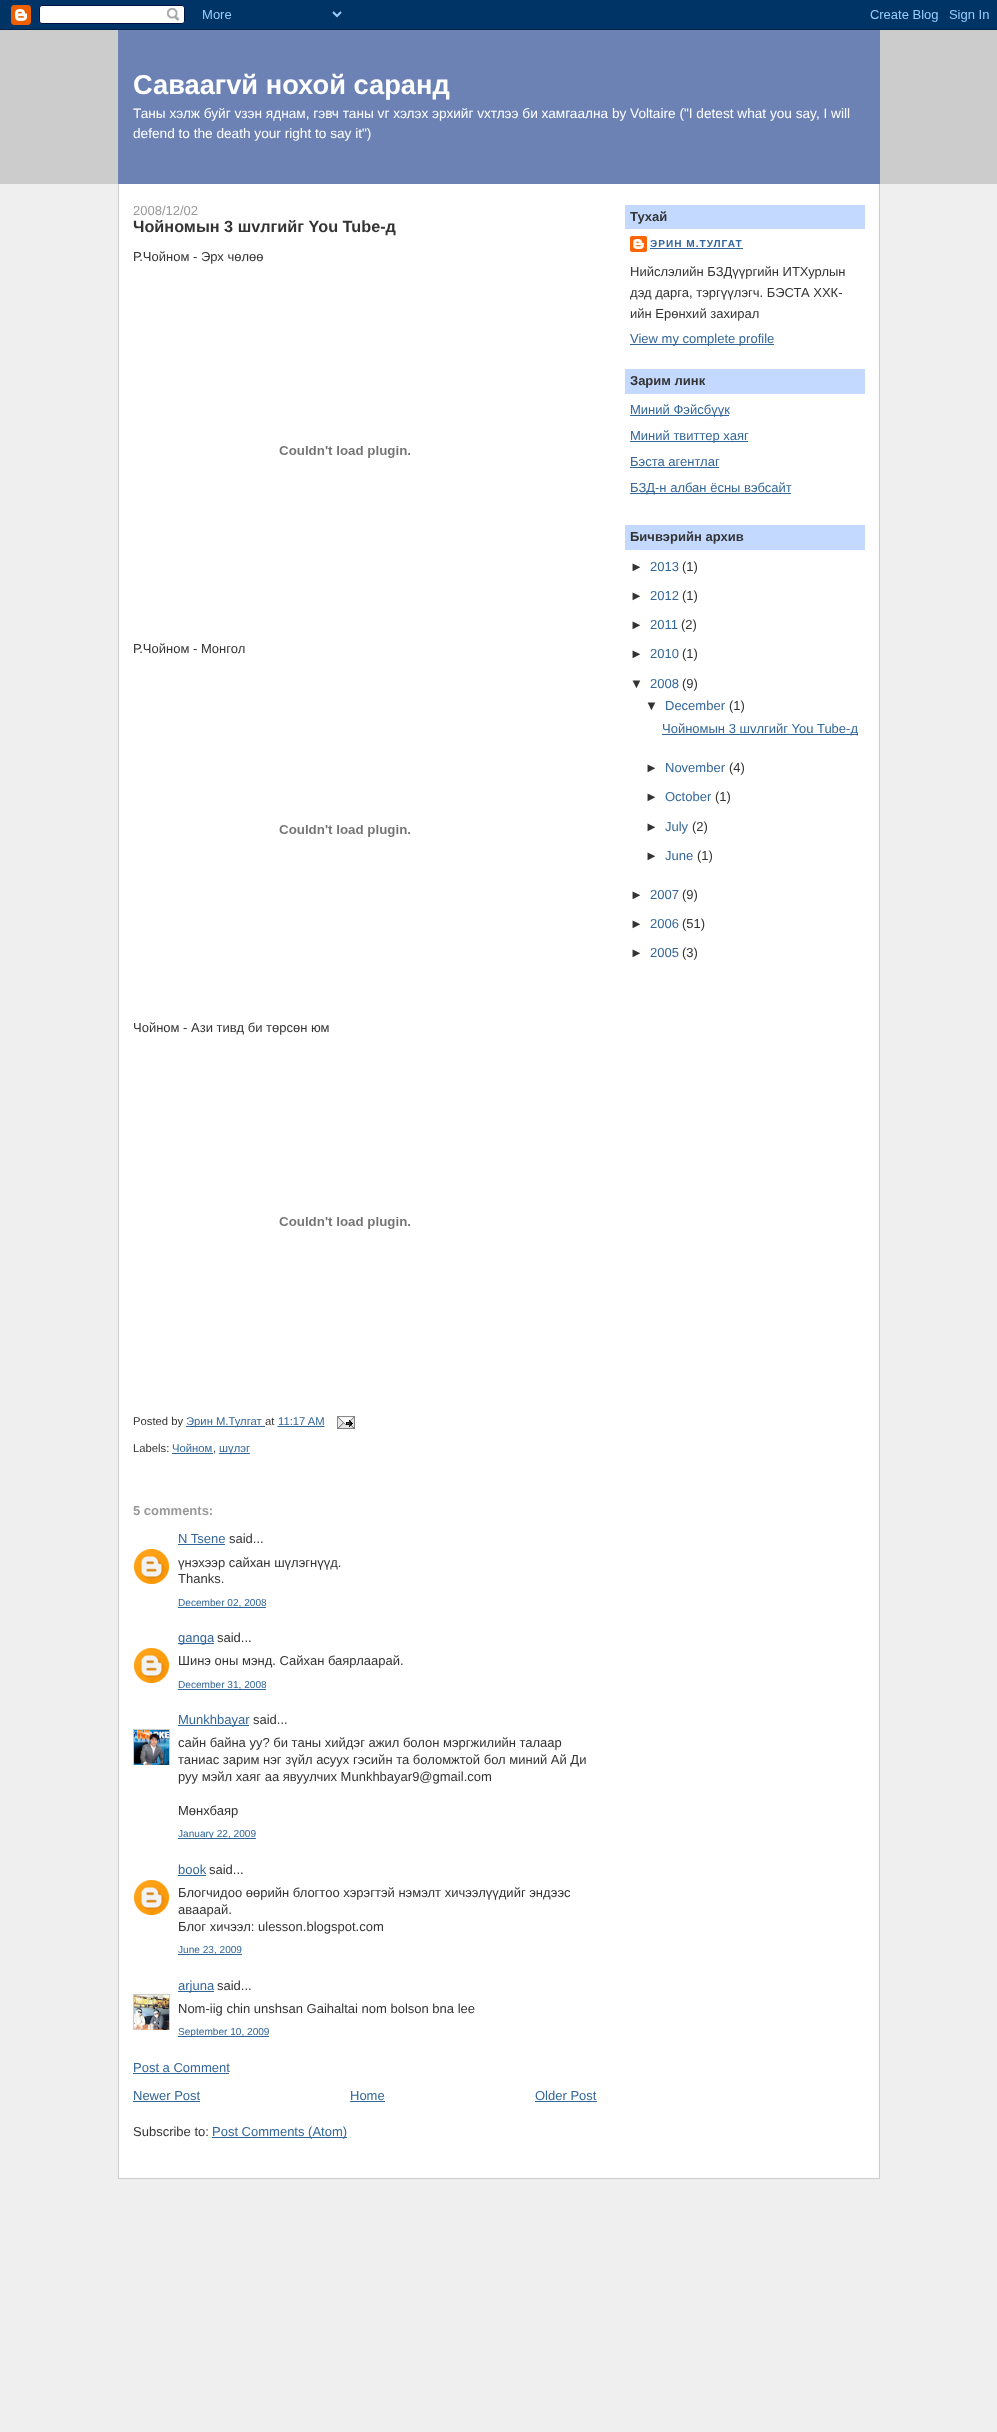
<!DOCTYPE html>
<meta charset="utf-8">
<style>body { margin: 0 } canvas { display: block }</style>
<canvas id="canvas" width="997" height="2432"></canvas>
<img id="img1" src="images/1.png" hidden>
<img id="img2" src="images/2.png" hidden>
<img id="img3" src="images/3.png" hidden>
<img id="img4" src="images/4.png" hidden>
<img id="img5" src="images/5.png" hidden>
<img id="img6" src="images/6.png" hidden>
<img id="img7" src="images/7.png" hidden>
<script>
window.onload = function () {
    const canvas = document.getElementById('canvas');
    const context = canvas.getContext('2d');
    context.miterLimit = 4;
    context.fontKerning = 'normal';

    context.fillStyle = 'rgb(239, 239, 239)';
    context.fillRect(0, 0, 997, 2432);
    context.drawImage(document.getElementById('img1'), 0, 0, 997, 30);
    context.fillStyle = 'rgb(204, 204, 204)';
    context.fillRect(0, 30, 997, 154);
    context.fillStyle = 'rgb(108, 130, 181)';
    context.fillRect(118, 30, 762, 154);
    context.fillStyle = 'rgb(255, 255, 255)';
    context.fillRect(119, 184, 760, 1994);
    context.fillStyle = 'rgb(204, 204, 204)';
    context.fillRect(879, 184, 1, 1995);
    context.fillRect(118, 2178, 762, 1);
    context.fillRect(118, 184, 1, 1995);
    context.drawImage(document.getElementById('img2'), 279, 446, 131, 12);
    context.drawImage(document.getElementById('img2'), 279, 825, 131, 12);
    context.drawImage(document.getElementById('img2'), 279, 1217, 131, 12);
    context.fillStyle = 'rgb(51, 102, 153)';
    context.fillRect(186, 1426, 79, 1);
    context.beginPath();
    context.moveTo(277.5, 1426.5);
    context.lineTo(324.5, 1426.5);
    context.strokeStyle = 'rgb(51, 102, 153)';
    context.setLineDash([1, 1]);
    context.stroke();
    context.fillRect(278, 1426, 46, 1);
    context.drawImage(document.getElementById('img3'), 337, 1416, 18, 13);
    context.fillRect(172, 1453, 41, 1);
    context.fillRect(219, 1453, 31, 1);
    context.fillRect(178, 1544, 47, 1);
    context.drawImage(document.getElementById('img4'), 134, 1549, 35, 35);
    context.fillRect(178, 1607, 88, 1);
    context.fillRect(178, 1643, 36, 1);
    context.drawImage(document.getElementById('img4'), 134, 1648, 35, 35);
    context.fillRect(178, 1689, 88, 1);
    context.fillRect(178, 1725, 71, 1);
    context.save();
    context.beginPath();
    context.rect(133, 1729, 37, 36);
    context.clip();
    context.strokeStyle = 'rgb(204, 204, 204)';
    context.setLineDash([]);
    context.strokeRect(133.5, 1729.5, 36, 36);
    context.restore();
    context.drawImage(document.getElementById('img5'), 134, 1730, 35, 35);
    context.fillRect(178, 1838, 78, 1);
    context.fillRect(178, 1875, 28, 1);
    context.drawImage(document.getElementById('img4'), 134, 1880, 35, 35);
    context.fillRect(178, 1954, 64, 1);
    context.fillRect(178, 1991, 36, 1);
    context.save();
    context.beginPath();
    context.rect(133, 1994, 37, 36);
    context.clip();
    context.strokeStyle = 'rgb(204, 204, 204)';
    context.setLineDash([]);
    context.strokeRect(133.5, 1994.5, 36, 36);
    context.restore();
    context.drawImage(document.getElementById('img6'), 134, 1995, 35, 35);
    context.fillRect(178, 2036, 91, 1);
    context.fillRect(133, 2073, 96, 1);
    context.fillRect(133, 2101, 67, 1);
    context.fillRect(350, 2101, 35, 1);
    context.fillRect(535, 2101, 62, 1);
    context.fillRect(212, 2137, 135, 1);
    context.fillStyle = 'rgb(195, 217, 255)';
    context.fillRect(625, 205, 240, 24);
    context.drawImage(document.getElementById('img7'), 630, 236, 17, 16);
    context.fillStyle = 'rgb(51, 102, 153)';
    context.fillRect(650, 248, 93, 1);
    context.fillRect(630, 344, 144, 1);
    context.fillStyle = 'rgb(195, 217, 255)';
    context.fillRect(625, 369, 240, 25);
    context.fillStyle = 'rgb(51, 102, 153)';
    context.fillRect(630, 415, 99, 1);
    context.fillRect(630, 441, 118, 1);
    context.fillRect(630, 467, 89, 1);
    context.fillRect(630, 493, 161, 1);
    context.fillStyle = 'rgb(195, 217, 255)';
    context.fillRect(625, 525, 240, 25);
    context.fillStyle = 'rgb(51, 102, 153)';
    context.fillRect(662, 734, 196, 1);
    context.font = 'bold 27.25px Liberation Sans';
    context.fillStyle = 'rgb(255, 255, 255)';
    context.fillText('Саваагvй нохой саранд', 133, 94);
    context.font = '13.65px Liberation Sans';
    context.fillText('Таны хэлж буйг vзэн яднам, гэвч таны vг хэлэх эрхийг vхтлээ би хамгаална by Voltaire ("I detest what you say, I will', 133, 118);
    context.fillText('defend to the death your right to say it")', 133, 138);
    context.font = '13px Liberation Sans';
    context.fillStyle = 'rgb(153, 153, 153)';
    context.fillText('2008/12/02', 133, 215);
    context.font = 'bold 16.25px Liberation Sans';
    context.fillStyle = 'rgb(51, 51, 51)';
    context.fillText('Чойномын 3 шvлгийг You Tube-д', 133, 232);
    context.font = '13px Liberation Sans';
    context.fillText('Р.Чойном - Эрх чөлөө', 133, 261);
    context.fillText('Р.Чойном - Монгол', 133, 653);
    context.fillText('Чойном - Ази тивд би төрсөн юм', 133, 1032);
    context.font = '11.25px Liberation Sans';
    context.fillText('Posted by', 133, 1425);
    context.fillStyle = 'rgb(51, 102, 153)';
    context.fillText('Эрин М.Тулгат', 186, 1425);
    context.fillStyle = 'rgb(51, 51, 51)';
    context.fillText('at', 265, 1425);
    context.fillStyle = 'rgb(51, 102, 153)';
    context.fillText('11:17 AM', 278, 1425);
    context.fillStyle = 'rgb(51, 51, 51)';
    context.fillText('Labels:', 133, 1452);
    context.fillStyle = 'rgb(51, 102, 153)';
    context.fillText('Чойном', 172, 1452);
    context.fillStyle = 'rgb(51, 51, 51)';
    context.fillText(',', 213, 1452);
    context.fillStyle = 'rgb(51, 102, 153)';
    context.fillText('шүлэг', 219, 1452);
    context.font = 'bold 13px Liberation Sans';
    context.fillStyle = 'rgb(153, 153, 153)';
    context.fillText('5 comments:', 133, 1515);
    context.font = '13px Liberation Sans';
    context.fillStyle = 'rgb(51, 102, 153)';
    context.fillText('N Tsene', 178, 1543);
    context.fillStyle = 'rgb(51, 51, 51)';
    context.fillText('said...', 229, 1543);
    context.fillText('үнэхээр сайхан шүлэгнүүд.', 178, 1567);
    context.fillText('Thanks.', 178, 1583);
    context.font = '10.1px Liberation Sans';
    context.fillStyle = 'rgb(51, 102, 153)';
    context.fillText('December 02, 2008', 178, 1606);
    context.font = '13px Liberation Sans';
    context.fillText('ganga', 178, 1642);
    context.fillStyle = 'rgb(51, 51, 51)';
    context.fillText('said...', 217, 1642);
    context.fillText('Шинэ оны мэнд. Сайхан баярлаарай.', 178, 1665);
    context.font = '10.1px Liberation Sans';
    context.fillStyle = 'rgb(51, 102, 153)';
    context.fillText('December 31, 2008', 178, 1688);
    context.font = '13px Liberation Sans';
    context.fillText('Munkhbayar', 178, 1724);
    context.fillStyle = 'rgb(51, 51, 51)';
    context.fillText('said...', 253, 1724);
    context.fillText('сайн байна уу? би таны хийдэг ажил болон мэргжилийн талаар', 178, 1747);
    context.fillText('таниас зарим нэг зүйл асуух гэсийн та боломжтой бол миний Ай Ди', 178, 1764);
    context.fillText('руу мэйл хаяг аа явуулчих Munkhbayar9@gmail.com', 178, 1781);
    context.fillText('Мөнхбаяр', 178, 1815);
    context.font = '10.1px Liberation Sans';
    context.fillStyle = 'rgb(51, 102, 153)';
    context.fillText('January 22, 2009', 178, 1837);
    context.font = '13px Liberation Sans';
    context.fillText('book', 178, 1874);
    context.fillStyle = 'rgb(51, 51, 51)';
    context.fillText('said...', 209, 1874);
    context.fillText('Блогчидоо өөрийн блогтоо хэрэгтэй нэмэлт хичээлүүдийг эндээс', 178, 1897);
    context.fillText('аваарай.', 178, 1914);
    context.fillText('Блог хичээл: ulesson.blogspot.com', 178, 1931);
    context.font = '10.1px Liberation Sans';
    context.fillStyle = 'rgb(51, 102, 153)';
    context.fillText('June 23, 2009', 178, 1953);
    context.font = '13px Liberation Sans';
    context.fillText('arjuna', 178, 1990);
    context.fillStyle = 'rgb(51, 51, 51)';
    context.fillText('said...', 217, 1990);
    context.fillText('Nom-iig chin unshsan Gaihaltai nom bolson bna lee', 178, 2013);
    context.font = '10.1px Liberation Sans';
    context.fillStyle = 'rgb(51, 102, 153)';
    context.fillText('September 10, 2009', 178, 2035);
    context.font = '13px Liberation Sans';
    context.fillText('Post a Comment', 133, 2072);
    context.fillText('Newer Post', 133, 2100);
    context.fillText('Home', 350, 2100);
    context.fillText('Older Post', 535, 2100);
    context.fillStyle = 'rgb(51, 51, 51)';
    context.fillText('Subscribe to:', 133, 2136);
    context.fillStyle = 'rgb(51, 102, 153)';
    context.fillText('Post Comments (Atom)', 212, 2136);
    context.font = 'bold 13px Liberation Sans';
    context.fillStyle = 'rgb(51, 51, 51)';
    context.fillText('Тухай', 630, 221);
    context.letterSpacing = '1px';
    context.font = 'bold 10.1px Liberation Sans';
    context.fillStyle = 'rgb(51, 102, 153)';
    context.fillText('ЭРИН М.ТУЛГАТ', 650, 247);
    context.letterSpacing = '0px';
    context.font = '13px Liberation Sans';
    context.fillStyle = 'rgb(51, 51, 51)';
    context.fillText('Нийслэлийн БЗДүүргийн ИТХурлын', 630, 276);
    context.fillText('дэд дарга, тэргүүлэгч. БЭСТА ХХК-', 630, 297);
    context.fillText('ийн Ерөнхий захирал', 630, 318);
    context.fillStyle = 'rgb(51, 102, 153)';
    context.fillText('View my complete profile', 630, 343);
    context.font = 'bold 13px Liberation Sans';
    context.fillStyle = 'rgb(51, 51, 51)';
    context.fillText('Зарим линк', 630, 385);
    context.font = '13px Liberation Sans';
    context.fillStyle = 'rgb(51, 102, 153)';
    context.fillText('Миний Фэйсбүүк', 630, 414);
    context.fillText('Миний твиттер хаяг', 630, 440);
    context.fillText('Бэста агентлаг', 630, 466);
    context.fillText('БЗД-н албан ёсны вэбсайт', 630, 492);
    context.font = 'bold 13px Liberation Sans';
    context.fillStyle = 'rgb(51, 51, 51)';
    context.fillText('Бичвэрийн архив', 630, 541);
    context.font = '13px Liberation Sans';
    context.fillText('►', 630, 571);
    context.fillStyle = 'rgb(51, 102, 153)';
    context.fillText('2013', 650, 571);
    context.fillStyle = 'rgb(51, 51, 51)';
    context.fillText('(1)', 682, 571);
    context.fillText('►', 630, 600);
    context.fillStyle = 'rgb(51, 102, 153)';
    context.fillText('2012', 650, 600);
    context.fillStyle = 'rgb(51, 51, 51)';
    context.fillText('(1)', 682, 600);
    context.fillText('►', 630, 629);
    context.fillStyle = 'rgb(51, 102, 153)';
    context.fillText('2011', 650, 629);
    context.fillStyle = 'rgb(51, 51, 51)';
    context.fillText('(2)', 681, 629);
    context.fillText('►', 630, 658);
    context.fillStyle = 'rgb(51, 102, 153)';
    context.fillText('2010', 650, 658);
    context.fillStyle = 'rgb(51, 51, 51)';
    context.fillText('(1)', 682, 658);
    context.fillText('▼', 630, 688);
    context.fillStyle = 'rgb(51, 102, 153)';
    context.fillText('2008', 650, 688);
    context.fillStyle = 'rgb(51, 51, 51)';
    context.fillText('(9)', 682, 688);
    context.fillText('▼', 645, 710);
    context.fillStyle = 'rgb(51, 102, 153)';
    context.fillText('December', 665, 710);
    context.fillStyle = 'rgb(51, 51, 51)';
    context.fillText('(1)', 729, 710);
    context.fillStyle = 'rgb(51, 102, 153)';
    context.fillText('Чойномын 3 шvлгийг You Tube-д', 662, 733);
    context.fillStyle = 'rgb(51, 51, 51)';
    context.fillText('►', 645, 772);
    context.fillStyle = 'rgb(51, 102, 153)';
    context.fillText('November', 665, 772);
    context.fillStyle = 'rgb(51, 51, 51)';
    context.fillText('(4)', 729, 772);
    context.fillText('►', 645, 801);
    context.fillStyle = 'rgb(51, 102, 153)';
    context.fillText('October', 665, 801);
    context.fillStyle = 'rgb(51, 51, 51)';
    context.fillText('(1)', 715, 801);
    context.fillText('►', 645, 831);
    context.fillStyle = 'rgb(51, 102, 153)';
    context.fillText('July', 665, 831);
    context.fillStyle = 'rgb(51, 51, 51)';
    context.fillText('(2)', 692, 831);
    context.fillText('►', 645, 860);
    context.fillStyle = 'rgb(51, 102, 153)';
    context.fillText('June', 665, 860);
    context.fillStyle = 'rgb(51, 51, 51)';
    context.fillText('(1)', 697, 860);
    context.fillText('►', 630, 899);
    context.fillStyle = 'rgb(51, 102, 153)';
    context.fillText('2007', 650, 899);
    context.fillStyle = 'rgb(51, 51, 51)';
    context.fillText('(9)', 682, 899);
    context.fillText('►', 630, 928);
    context.fillStyle = 'rgb(51, 102, 153)';
    context.fillText('2006', 650, 928);
    context.fillStyle = 'rgb(51, 51, 51)';
    context.fillText('(51)', 682, 928);
    context.fillText('►', 630, 957);
    context.fillStyle = 'rgb(51, 102, 153)';
    context.fillText('2005', 650, 957);
    context.fillStyle = 'rgb(51, 51, 51)';
    context.fillText('(3)', 682, 957);
};
</script>
